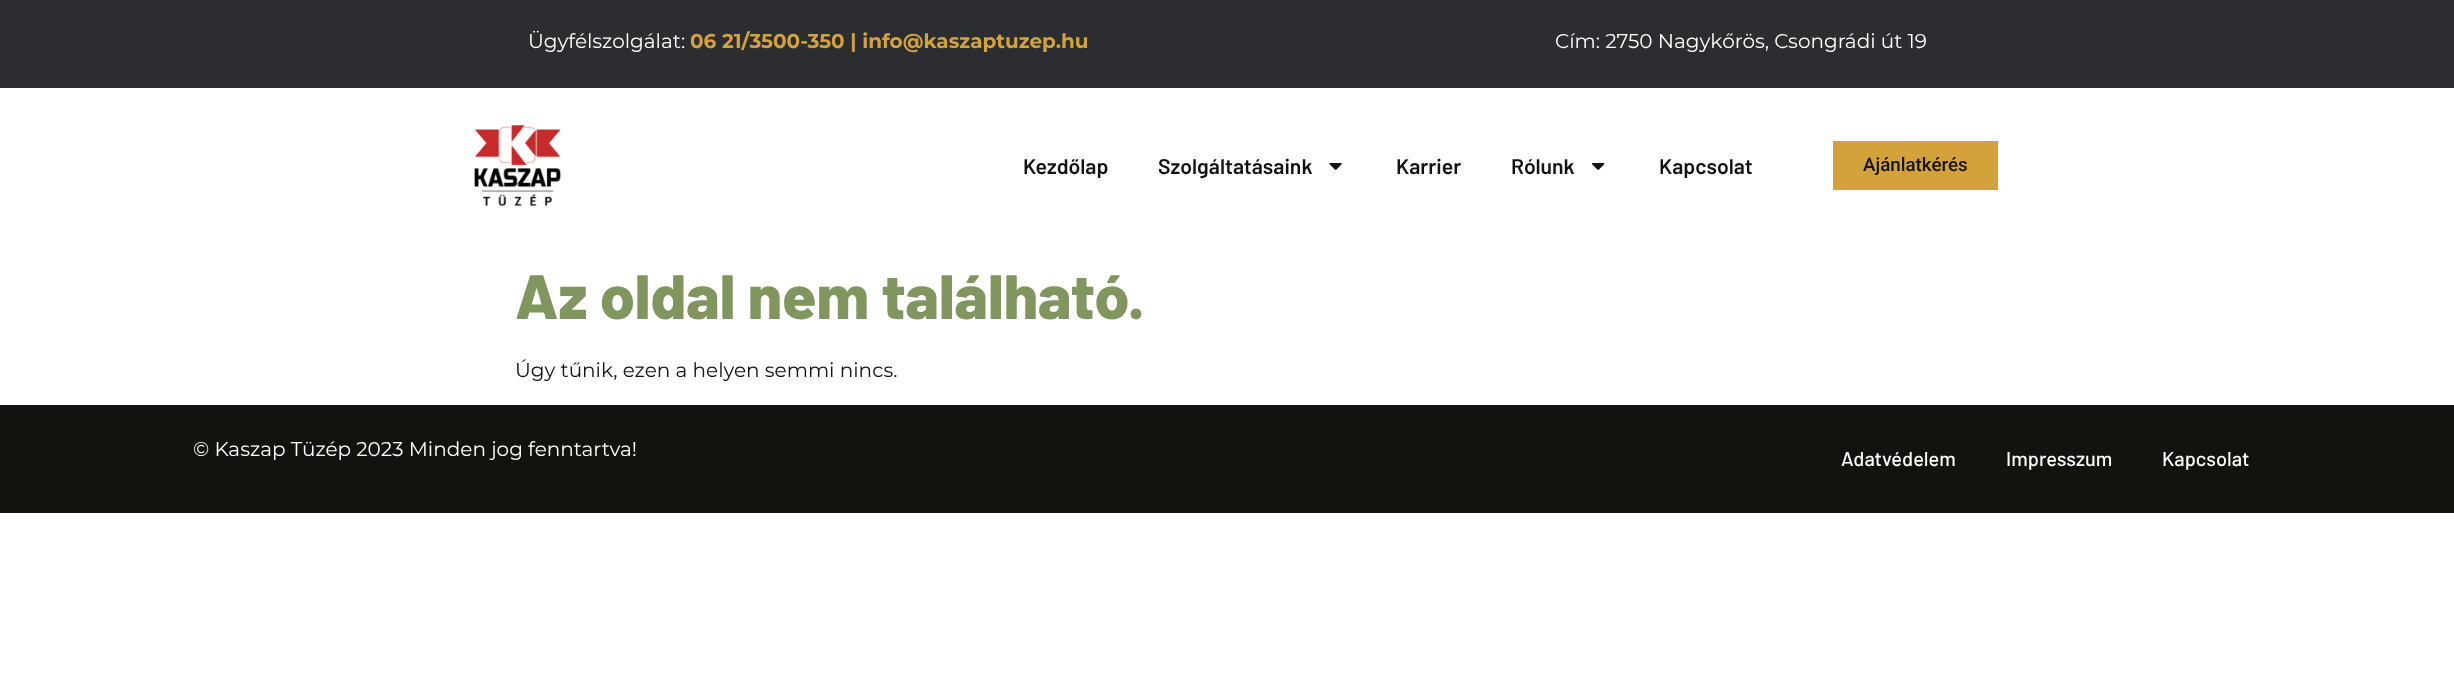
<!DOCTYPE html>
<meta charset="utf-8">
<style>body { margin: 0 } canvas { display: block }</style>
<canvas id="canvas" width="2454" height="674"></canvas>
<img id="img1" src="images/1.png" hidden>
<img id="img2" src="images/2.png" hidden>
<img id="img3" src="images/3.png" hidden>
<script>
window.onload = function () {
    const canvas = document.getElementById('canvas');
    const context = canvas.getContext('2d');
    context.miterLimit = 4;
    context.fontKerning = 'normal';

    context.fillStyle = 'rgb(255, 255, 255)';
    context.fillRect(0, 0, 2454, 674);
    context.fillStyle = 'rgb(44, 45, 48)';
    context.fillRect(0, 0, 2454, 88);
    context.drawImage(document.getElementById('img1'), 474, 125, 87, 82);
    context.drawImage(document.getElementById('img2'), 1329, 163, 13, 7);
    context.drawImage(document.getElementById('img3'), 1592, 163, 13, 7);
    context.fillStyle = 'rgb(212, 162, 59)';
    context.fillRect(1833, 141, 165, 49);
    context.fillStyle = 'rgb(18, 18, 15)';
    context.fillRect(0, 405, 2454, 108);
    context.font = '20px Montserrat';
    context.fillStyle = 'rgb(255, 255, 255)';
    context.fillText('Ügyfélszolgálat:', 528, 48);
    context.font = 'bold 20px Montserrat';
    context.fillStyle = 'rgb(212, 162, 59)';
    context.fillText('06 21/3500-350 | info@kaszaptuzep.hu', 690, 48);
    context.font = '20px Montserrat';
    context.fillStyle = 'rgb(255, 255, 255)';
    context.fillText('Cím: 2750 Nagykőrös, Csongrádi út 19', 1555, 48);
    context.font = '600 21.25px Barlow';
    context.fillStyle = 'rgb(18, 18, 15)';
    context.fillText('Kezdőlap', 1023, 174);
    context.fillText('Szolgáltatásaink', 1158, 174);
    context.fillText('Karrier', 1396, 174);
    context.fillText('Rólunk', 1511, 174);
    context.fillText('Kapcsolat', 1659, 174);
    context.font = '500 18.75px Roboto';
    context.fillText('Ajánlatkérés', 1863, 171);
    context.font = '800 62.5px Barlow';
    context.fillStyle = 'rgb(129, 150, 94)';
    context.fillText('Az oldal nem található.', 515, 319);
    context.font = '20px Montserrat';
    context.fillStyle = 'rgb(18, 18, 15)';
    context.fillText('Úgy tűnik, ezen a helyen semmi nincs.', 515, 377);
    context.fillStyle = 'rgb(255, 255, 255)';
    context.fillText('© Kaszap Tüzép 2023 Minden jog fenntartva!', 193, 456);
    context.font = '500 20px Barlow';
    context.fillText('Adatvédelem', 1841, 466);
    context.fillText('Impresszum', 2006, 466);
    context.fillText('Kapcsolat', 2162, 466);
};
</script>
